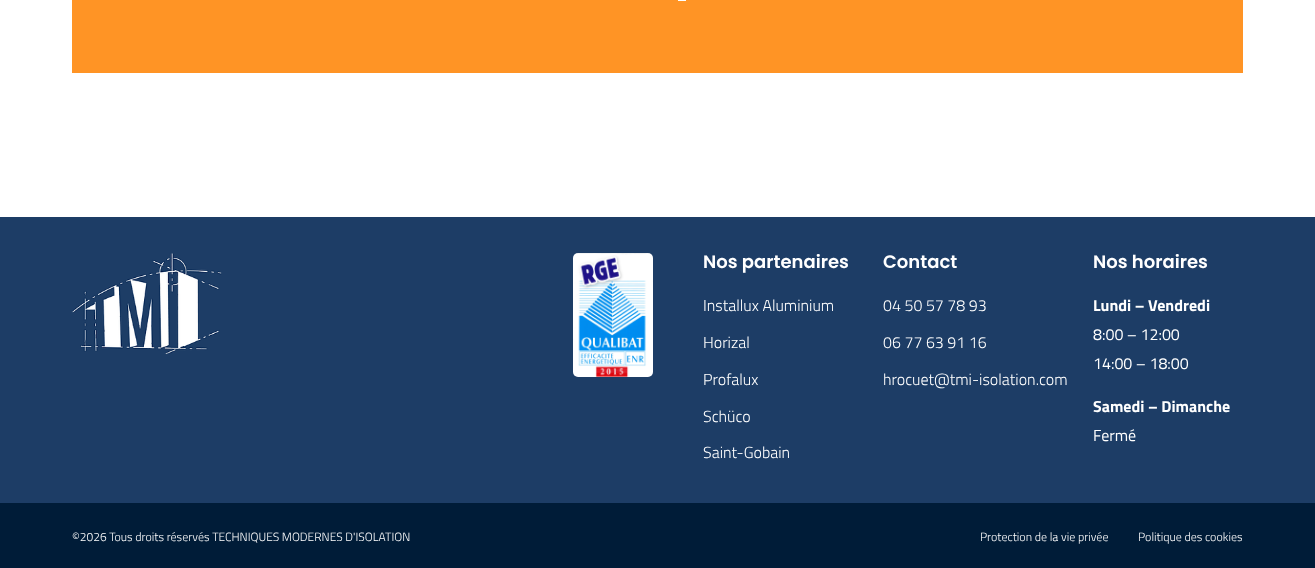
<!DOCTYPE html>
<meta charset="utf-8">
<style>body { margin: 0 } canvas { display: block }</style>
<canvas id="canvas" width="1315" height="568"></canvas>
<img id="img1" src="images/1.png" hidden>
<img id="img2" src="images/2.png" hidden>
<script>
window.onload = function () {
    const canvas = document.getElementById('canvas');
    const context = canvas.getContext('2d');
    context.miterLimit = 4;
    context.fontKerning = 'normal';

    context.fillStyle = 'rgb(255, 255, 255)';
    context.fillRect(0, 0, 1315, 568);
    context.fillStyle = 'rgb(255, 148, 37)';
    context.fillRect(72, 0, 1171, 73);
    context.fillStyle = 'rgb(255, 255, 255)';
    context.fillRect(678, 0, 8, 1);
    context.fillStyle = 'rgb(29, 61, 102)';
    context.fillRect(0, 217, 1315, 286);
    context.drawImage(document.getElementById('img1'), 72, 253, 150, 101);
    context.drawImage(document.getElementById('img2'), 573, 253, 80, 124);
    context.fillStyle = 'rgb(0, 28, 56)';
    context.fillRect(0, 503, 1315, 65);
    context.font = '600 18px Poppins';
    context.fillStyle = 'rgb(255, 255, 255)';
    context.fillText('Nos partenaires', 703, 268);
    context.font = '300 16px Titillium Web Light';
    context.fillText('Installux Aluminium', 703, 311);
    context.fillText('Horizal', 703, 348);
    context.fillText('Profalux', 703, 385);
    context.fillText('Schüco', 703, 422);
    context.fillText('Saint-Gobain', 703, 458);
    context.font = '600 18px Poppins';
    context.fillText('Contact', 883, 268);
    context.font = '300 16px Titillium Web Light';
    context.fillText('04 50 57 78 93', 883, 311);
    context.fillText('06 77 63 91 16', 883, 348);
    context.fillText('hrocuet@tmi-isolation.com', 883, 385);
    context.font = '600 18px Poppins';
    context.fillText('Nos horaires', 1093, 268);
    context.font = 'bold 16px Titillium Web';
    context.fillText('Lundi – Vendredi', 1093, 311);
    context.font = '16px Titillium Web';
    context.fillText('8:00 – 12:00', 1093, 340);
    context.fillText('14:00 – 18:00', 1093, 369);
    context.font = 'bold 16px Titillium Web';
    context.fillText('Samedi – Dimanche', 1093, 412);
    context.font = '16px Titillium Web';
    context.fillText('Fermé', 1093, 441);
    context.font = '300 12px Titillium Web Light';
    context.fillText('©2026 Tous droits réservés TECHNIQUES MODERNES D\'ISOLATION', 72, 541);
    context.fillText('Protection de la vie privée', 980, 541);
    context.fillText('Politique des cookies', 1138, 541);
};
</script>
